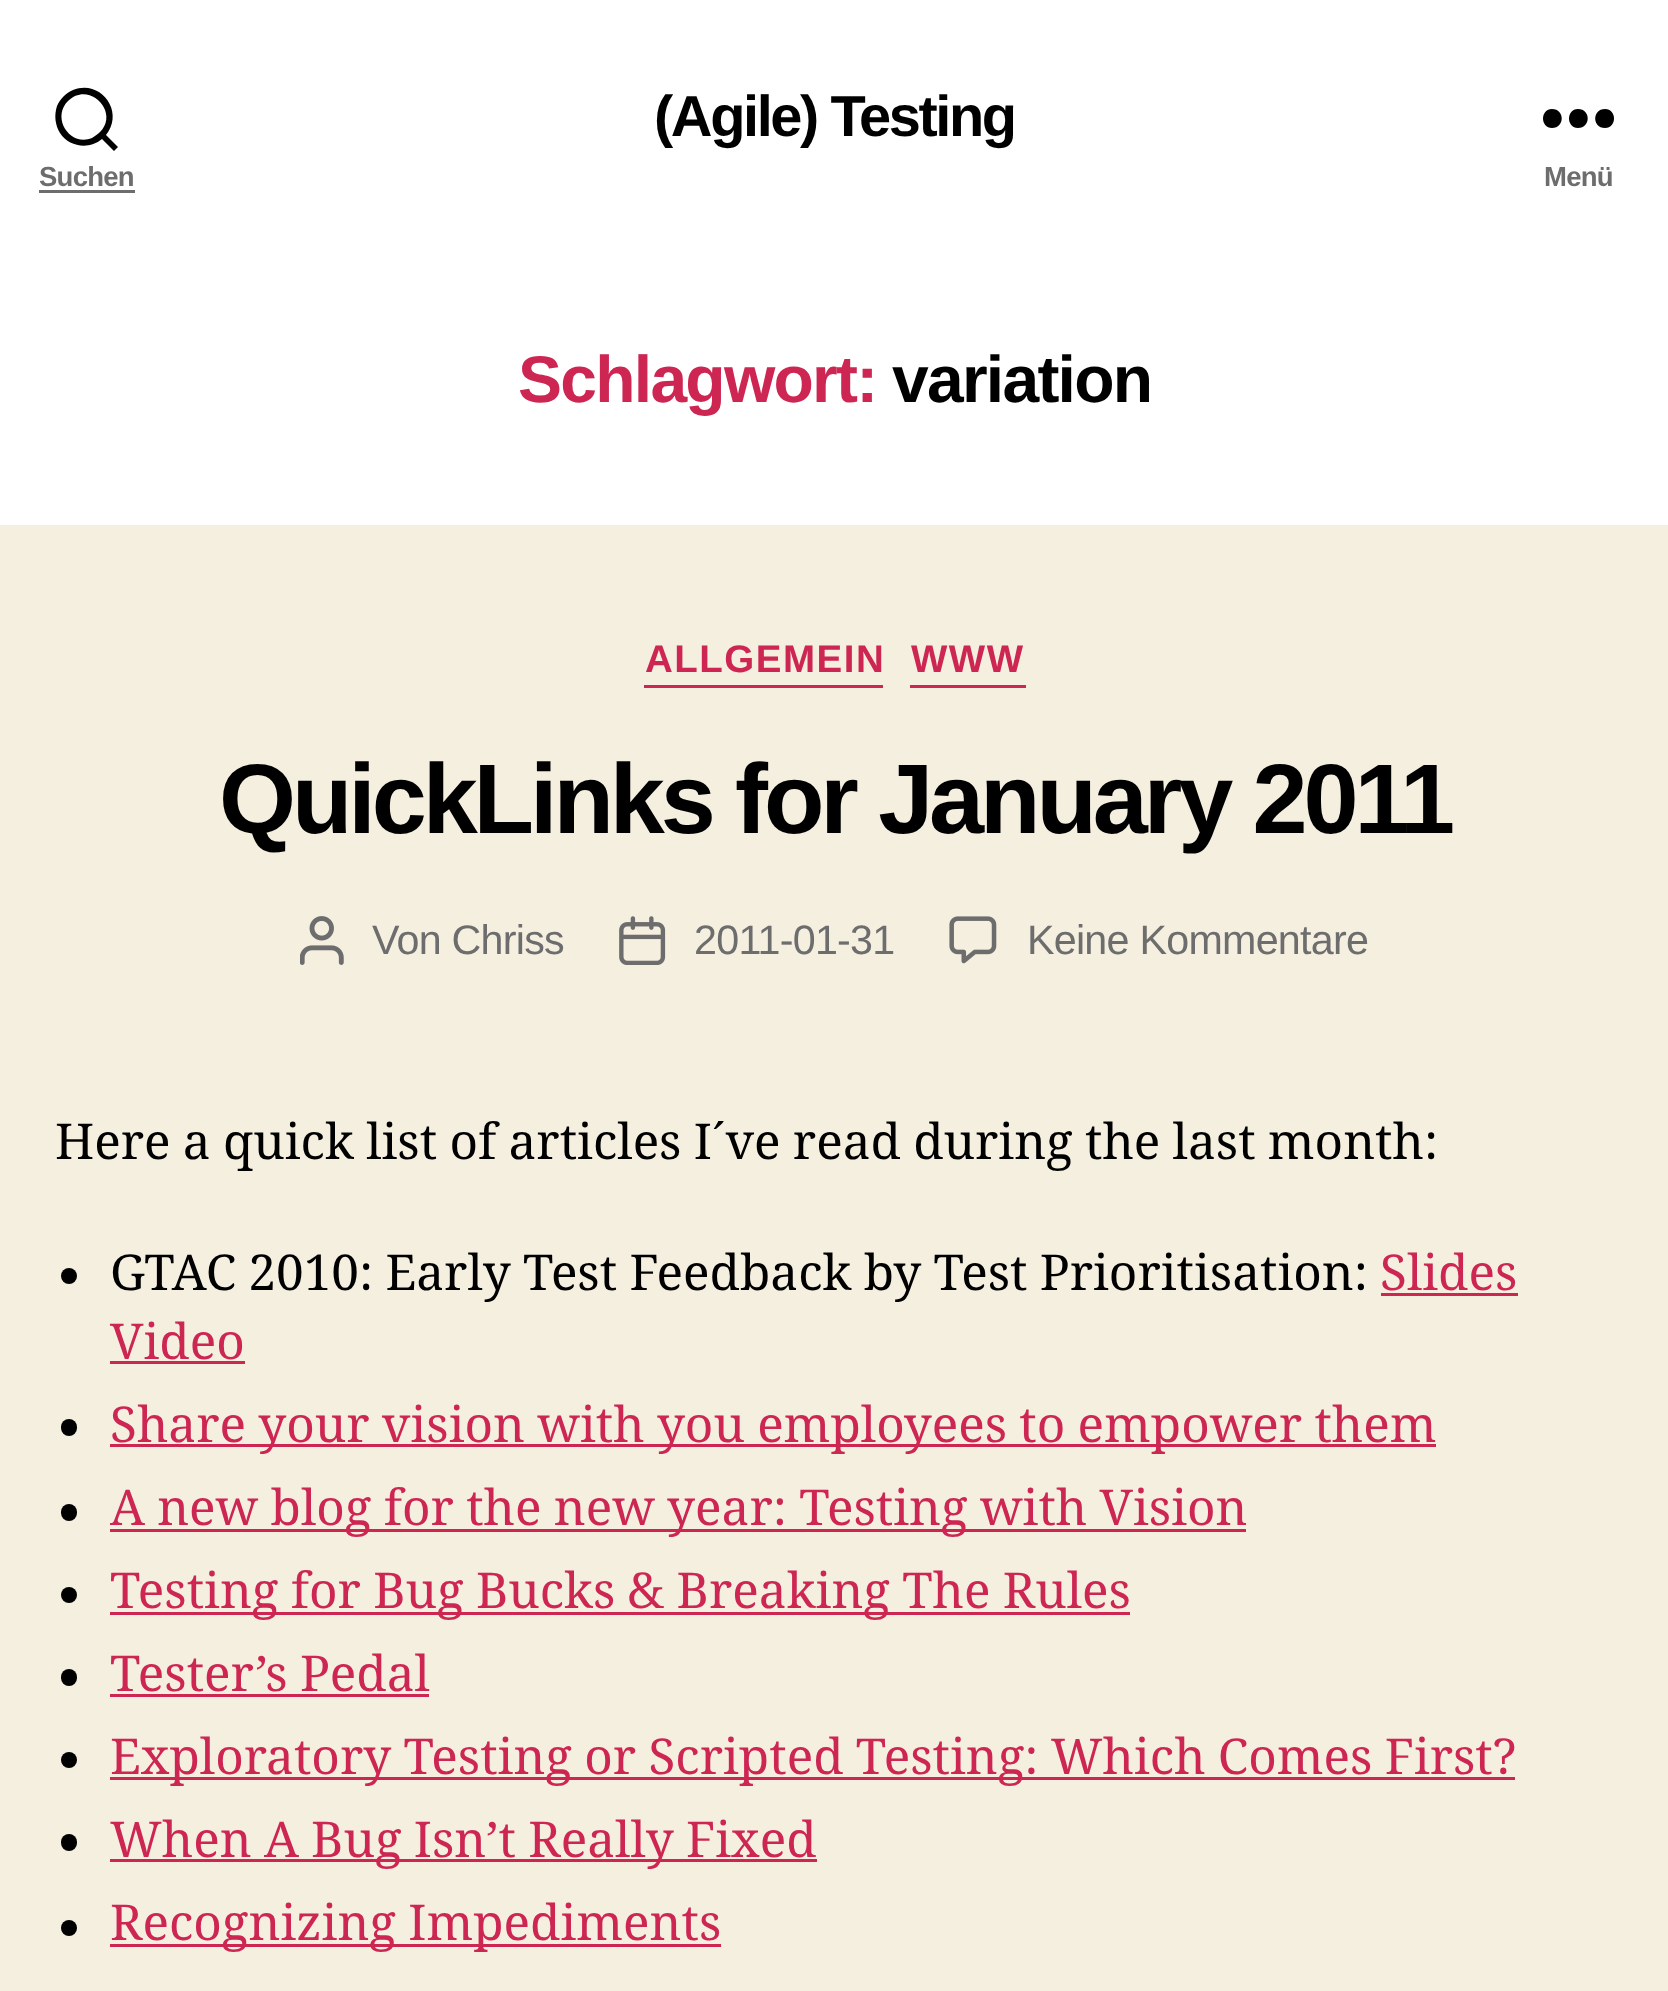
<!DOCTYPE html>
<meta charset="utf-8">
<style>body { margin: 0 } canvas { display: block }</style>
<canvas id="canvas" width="1668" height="1991"></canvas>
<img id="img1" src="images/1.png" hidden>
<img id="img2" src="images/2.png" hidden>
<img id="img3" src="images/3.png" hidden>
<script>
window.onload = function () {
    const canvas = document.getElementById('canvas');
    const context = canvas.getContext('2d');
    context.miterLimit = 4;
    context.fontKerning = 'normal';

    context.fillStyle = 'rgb(245, 239, 224)';
    context.fillRect(0, 0, 1668, 1991);
    context.fillStyle = 'rgb(255, 255, 255)';
    context.fillRect(0, 0, 1668, 525);
    context.fillStyle = 'rgb(0, 0, 0)';
    context.beginPath();
    context.moveTo(106, 135);
    context.lineTo(118, 147);
    context.lineTo(114, 151);
    context.lineTo(102, 139);
    context.bezierCurveTo(89, 150, 69, 147, 60, 133);
    context.bezierCurveTo(55, 125, 54, 115, 57, 106);
    context.bezierCurveTo(60, 99, 66, 93, 73, 90);
    context.bezierCurveTo(101, 79, 125, 112, 106, 135);
    context.closePath();
    context.moveTo(100, 132);
    context.bezierCurveTo(120, 112, 89, 80, 68, 101);
    context.bezierCurveTo(51, 118, 70, 147, 92, 138);
    context.bezierCurveTo(95, 136, 98, 134, 100, 132);
    context.closePath();
    context.fill();
    context.fillStyle = 'rgb(109, 109, 109)';
    context.fillRect(39, 190, 96, 3);
    context.fillStyle = 'rgb(0, 0, 0)';
    context.beginPath();
    context.moveTo(1552, 128);
    context.bezierCurveTo(1540, 128, 1540, 109, 1552, 109);
    context.bezierCurveTo(1565, 109, 1565, 128, 1552, 128);
    context.closePath();
    context.moveTo(1578, 128);
    context.bezierCurveTo(1566, 128, 1566, 109, 1578, 109);
    context.bezierCurveTo(1591, 109, 1591, 128, 1578, 128);
    context.closePath();
    context.moveTo(1605, 128);
    context.bezierCurveTo(1592, 128, 1592, 109, 1605, 109);
    context.bezierCurveTo(1617, 109, 1617, 128, 1605, 128);
    context.closePath();
    context.fill('evenodd');
    context.fillStyle = 'rgb(205, 38, 83)';
    context.fillRect(644, 685, 239, 3);
    context.fillRect(910, 685, 116, 3);
    context.drawImage(document.getElementById('img1'), 300, 916, 44, 49);
    context.drawImage(document.getElementById('img2'), 619, 916, 47, 49);
    context.drawImage(document.getElementById('img3'), 949, 916, 48, 48);
    context.fillStyle = 'rgb(0, 0, 0)';
    context.beginPath();
    context.arc(69, 1276, 8, 0, 2 * Math.PI);
    context.fill();
    context.fillStyle = 'rgb(205, 38, 83)';
    context.fillRect(1381, 1293, 137, 3);
    context.fillRect(110, 1361, 135, 3);
    context.fillStyle = 'rgb(0, 0, 0)';
    context.beginPath();
    context.roundRect(61, 1419, 16, 17, 8);
    context.fill();
    context.fillStyle = 'rgb(205, 38, 83)';
    context.fillRect(110, 1444, 1326, 3);
    context.fillStyle = 'rgb(0, 0, 0)';
    context.beginPath();
    context.roundRect(61, 1504, 16, 17, 8);
    context.fill();
    context.fillStyle = 'rgb(205, 38, 83)';
    context.fillRect(110, 1529, 1136, 3);
    context.fillStyle = 'rgb(0, 0, 0)';
    context.beginPath();
    context.arc(69, 1595, 8, 0, 2 * Math.PI);
    context.fill();
    context.fillStyle = 'rgb(205, 38, 83)';
    context.fillRect(110, 1612, 1020, 3);
    context.fillStyle = 'rgb(0, 0, 0)';
    context.beginPath();
    context.roundRect(61, 1669, 16, 17, 8);
    context.fill();
    context.fillStyle = 'rgb(205, 38, 83)';
    context.fillRect(110, 1694, 319, 3);
    context.fillStyle = 'rgb(0, 0, 0)';
    context.beginPath();
    context.arc(69, 1760, 8, 0, 2 * Math.PI);
    context.fill();
    context.fillStyle = 'rgb(205, 38, 83)';
    context.fillRect(110, 1777, 1405, 3);
    context.fillStyle = 'rgb(0, 0, 0)';
    context.beginPath();
    context.roundRect(61, 1834, 16, 17, 8);
    context.fill();
    context.fillStyle = 'rgb(205, 38, 83)';
    context.fillRect(110, 1859, 707, 3);
    context.fillStyle = 'rgb(0, 0, 0)';
    context.beginPath();
    context.arc(69, 1928, 8, 0, 2 * Math.PI);
    context.fill();
    context.fillStyle = 'rgb(205, 38, 83)';
    context.fillRect(110, 1944, 611, 3);
    context.letterSpacing = '-2.4px';
    context.font = 'bold 57.75px Liberation Sans';
    context.fillStyle = 'rgb(0, 0, 0)';
    context.fillText('(Agile) Testing', 654, 136);
    context.letterSpacing = '-0.75px';
    context.font = 'bold 27.5px Liberation Sans';
    context.fillStyle = 'rgb(109, 109, 109)';
    context.fillText('Suchen', 39, 186);
    context.fillText('Menü', 1544, 186);
    context.letterSpacing = '-1.75px';
    context.font = 'bold 66px Liberation Sans';
    context.fillStyle = 'rgb(205, 38, 83)';
    context.fillText('Schlagwort:', 518, 402);
    context.fillStyle = 'rgb(0, 0, 0)';
    context.fillText('variation', 892, 402);
    context.letterSpacing = '1.5px';
    context.font = 'bold 38.5px Liberation Sans';
    context.fillStyle = 'rgb(205, 38, 83)';
    context.fillText('ALLGEMEIN', 645, 672);
    context.fillText('WWW', 911, 672);
    context.letterSpacing = '-4.1px';
    context.font = 'bold 99px Liberation Sans';
    context.fillStyle = 'rgb(0, 0, 0)';
    context.fillText('QuickLinks for January 2011', 219, 833);
    context.letterSpacing = '-0.75px';
    context.font = '41.25px Liberation Sans';
    context.fillStyle = 'rgb(109, 109, 109)';
    context.fillText('Von Chriss', 372, 954);
    context.fillText('2011-01-31', 694, 954);
    context.fillText('Keine Kommentare', 1027, 954);
    context.letterSpacing = '0px';
    context.wordSpacing = '-0.6px';
    context.font = '49.5px Noto Serif';
    context.fillStyle = 'rgb(0, 0, 0)';
    context.fillText('Here a quick list of articles I´ve read during the last month:', 55, 1159);
    context.fillText('GTAC 2010: Early Test Feedback by Test Prioritisation:', 110, 1290);
    context.wordSpacing = '0px';
    context.fillStyle = 'rgb(205, 38, 83)';
    context.fillText('Slides', 1380, 1290);
    context.fillText('Video', 110, 1359);
    context.wordSpacing = '-0.6px';
    context.fillText('Share your vision with you employees to empower them', 110, 1442);
    context.fillText('A new blog for the new year: Testing with Vision', 110, 1525);
    context.fillText('Testing for Bug Bucks & Breaking The Rules', 110, 1608);
    context.fillText('Tester’s Pedal', 110, 1691);
    context.fillText('Exploratory Testing or Scripted Testing: Which Comes First?', 110, 1774);
    context.fillText('When A Bug Isn’t Really Fixed', 110, 1857);
    context.fillText('Recognizing Impediments', 110, 1940);
};
</script>
